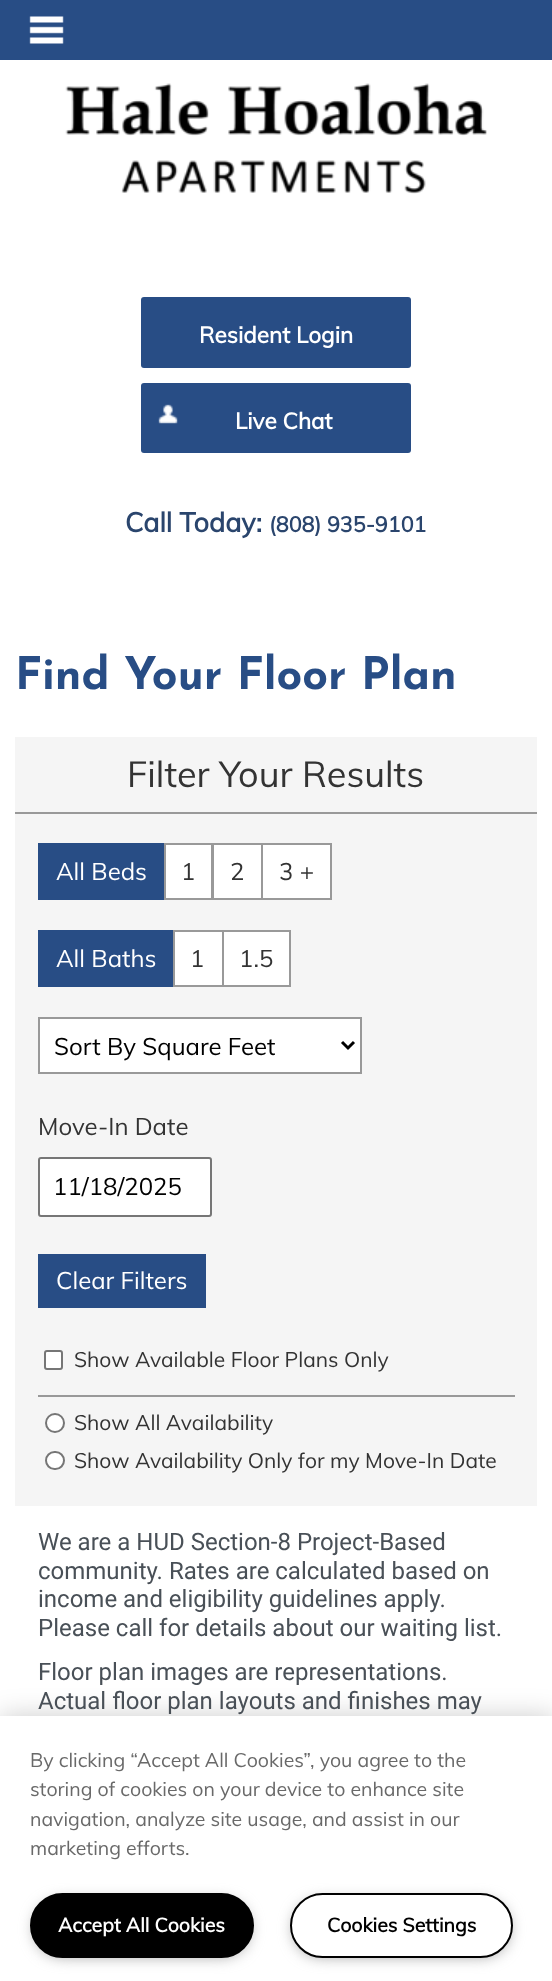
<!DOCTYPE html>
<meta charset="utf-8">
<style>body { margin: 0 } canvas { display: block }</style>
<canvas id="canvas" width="552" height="1981"></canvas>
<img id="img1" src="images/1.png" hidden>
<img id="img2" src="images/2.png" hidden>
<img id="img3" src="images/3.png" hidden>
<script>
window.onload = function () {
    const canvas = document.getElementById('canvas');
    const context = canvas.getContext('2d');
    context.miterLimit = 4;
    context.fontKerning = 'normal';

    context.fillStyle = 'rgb(255, 255, 255)';
    context.fillRect(0, 0, 552, 1981);
    context.fillStyle = 'rgb(40, 77, 133)';
    context.fillRect(0, 0, 552, 60);
    context.drawImage(document.getElementById('img1'), 29, 16, 35, 28);
    context.drawImage(document.getElementById('img2'), 65, 83, 422, 111);
    context.beginPath();
    context.roundRect(141, 297, 270, 71, 3);
    context.fill();
    context.beginPath();
    context.roundRect(141, 383, 270, 70, 3);
    context.fill();
    context.drawImage(document.getElementById('img3'), 158, 404, 20, 20);
    context.fillStyle = 'rgb(245, 245, 245)';
    context.fillRect(15, 737, 522, 769);
    context.fillStyle = 'rgb(153, 153, 153)';
    context.fillRect(15, 812, 522, 2);
    context.fillStyle = 'rgb(40, 77, 133)';
    context.fillRect(38, 843, 126, 57);
    context.fillStyle = 'rgb(255, 255, 255)';
    context.beginPath();
    context.rect(165, 844, 47, 55);
    context.fill();
    context.strokeStyle = 'rgb(153, 153, 153)';
    context.lineWidth = 2;
    context.stroke();
    context.beginPath();
    context.rect(213, 844, 49, 55);
    context.fill();
    context.stroke();
    context.beginPath();
    context.rect(262, 844, 69, 55);
    context.fill();
    context.stroke();
    context.fillStyle = 'rgb(40, 77, 133)';
    context.fillRect(38, 930, 135, 57);
    context.fillStyle = 'rgb(255, 255, 255)';
    context.beginPath();
    context.rect(174, 931, 49, 55);
    context.fill();
    context.stroke();
    context.beginPath();
    context.rect(223, 931, 67, 55);
    context.fill();
    context.stroke();
    context.beginPath();
    context.rect(39, 1018, 322, 55);
    context.fill();
    context.stroke();
    context.beginPath();
    context.moveTo(342, 1042);
    context.lineTo(348, 1048);
    context.lineTo(354, 1042);
    context.strokeStyle = 'rgb(0, 0, 0)';
    context.lineWidth = 3;
    context.stroke();
    context.beginPath();
    context.roundRect(39, 1158, 172, 58, 2);
    context.fill();
    context.strokeStyle = 'rgb(118, 118, 118)';
    context.lineWidth = 2;
    context.stroke();
    context.fillStyle = 'rgb(40, 77, 133)';
    context.fillRect(38, 1254, 168, 54);
    context.fillStyle = 'rgb(153, 153, 153)';
    context.fillRect(38, 1395, 477, 2);
    context.fillStyle = 'rgb(255, 255, 255)';
    context.beginPath();
    context.roundRect(45, 1351, 17, 18, 2);
    context.fill();
    context.stroke();
    context.beginPath();
    context.arc(55, 1423, 9, 0, 2 * Math.PI);
    context.fill();
    context.stroke();
    context.beginPath();
    context.roundRect(46, 1452, 18, 17, 8.5);
    context.fill();
    context.stroke();
    context.fillStyle = 'rgba(0, 0, 0, 0.2)';
    context.filter = 'blur(13.5px)';
    context.beginPath();
    context.rect(0, 1716, 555, 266);
    context.fill();
    context.filter = 'none';
    context.fillStyle = 'rgb(255, 255, 255)';
    context.fillRect(0, 1716, 552, 265);
    context.fillStyle = 'rgb(153, 153, 153)';
    context.filter = 'blur(7.5px)';
    context.beginPath();
    context.roundRect(35, 1901, 214, 55, 27.5);
    context.fill();
    context.filter = 'none';
    context.fillStyle = 'rgb(0, 0, 0)';
    context.beginPath();
    context.roundRect(31, 1894, 222, 63, 31.5);
    context.fill();
    context.strokeStyle = 'rgb(0, 0, 0)';
    context.stroke();
    context.fillStyle = 'rgb(153, 153, 153)';
    context.filter = 'blur(7.5px)';
    context.beginPath();
    context.roundRect(294, 1901, 215, 55, 27.5);
    context.fill();
    context.filter = 'none';
    context.fillStyle = 'rgb(255, 255, 255)';
    context.beginPath();
    context.roundRect(291, 1894, 221, 63, 31.5);
    context.fill();
    context.stroke();
    context.font = 'bold 22.5px Muli';
    context.fillText('Resident Login', 199, 343);
    context.fillText('Live Chat', 235, 429);
    context.font = 'bold 27px Muli';
    context.fillStyle = 'rgb(42, 69, 109)';
    context.fillText('Call Today:', 125, 532);
    context.font = 'bold 21.5px Muli';
    context.fillText('(808) 935-9101', 269, 532);
    context.font = 'bold 45px Josefin Sans';
    context.fillStyle = 'rgb(40, 77, 133)';
    context.fillText('Find Your Floor Plan', 15, 689);
    context.font = '36px Muli';
    context.fillStyle = 'rgb(51, 51, 51)';
    context.fillText('Filter Your Results', 127, 787);
    context.font = '24px Muli';
    context.fillStyle = 'rgb(255, 255, 255)';
    context.fillText('All Beds', 56, 880);
    context.fillStyle = 'rgb(51, 51, 51)';
    context.fillText('1', 181, 880);
    context.fillText('2', 230, 880);
    context.fillText('3 +', 279, 880);
    context.fillStyle = 'rgb(255, 255, 255)';
    context.fillText('All Baths', 56, 967);
    context.fillStyle = 'rgb(51, 51, 51)';
    context.fillText('1', 190, 967);
    context.fillText('1.5', 239, 967);
    context.fillStyle = 'rgb(0, 0, 0)';
    context.fillText('Sort By Square Feet', 54, 1055);
    context.fillStyle = 'rgb(51, 51, 51)';
    context.fillText('Move-In Date', 38, 1135);
    context.fillStyle = 'rgb(0, 0, 0)';
    context.fillText('11/18/2025', 53, 1195);
    context.fillStyle = 'rgb(255, 255, 255)';
    context.fillText('Clear Filters', 56, 1289);
    context.font = '21px Muli';
    context.fillStyle = 'rgb(51, 51, 51)';
    context.fillText('Show Available Floor Plans Only', 74, 1367);
    context.fillText('Show All Availability', 74, 1430);
    context.fillText('Show Availability Only for my Move-In Date', 74, 1468);
    context.font = '24px Roboto';
    context.fillStyle = 'rgb(73, 80, 87)';
    context.fillText('We are a HUD Section-8 Project-Based', 38, 1550);
    context.fillText('community. Rates are calculated based on', 38, 1579);
    context.fillText('income and eligibility guidelines apply.', 38, 1607);
    context.fillText('Please call for details about our waiting list.', 38, 1636);
    context.fillText('Floor plan images are representations.', 38, 1680);
    context.fillText('Actual floor plan layouts and finishes may', 38, 1709);
    context.font = '19.5px Muli';
    context.fillStyle = 'rgb(105, 105, 105)';
    context.fillText('By clicking “Accept All Cookies”, you agree to the', 30, 1767);
    context.fillText('storing of cookies on your device to enhance site', 30, 1796);
    context.fillText('navigation, analyze site usage, and assist in our', 30, 1826);
    context.fillText('marketing efforts.', 30, 1855);
    context.font = 'bold 19.5px Muli';
    context.fillStyle = 'rgb(255, 255, 255)';
    context.fillText('Accept All Cookies', 58, 1932);
    context.fillStyle = 'rgb(0, 0, 0)';
    context.fillText('Cookies Settings', 327, 1932);
};
</script>
